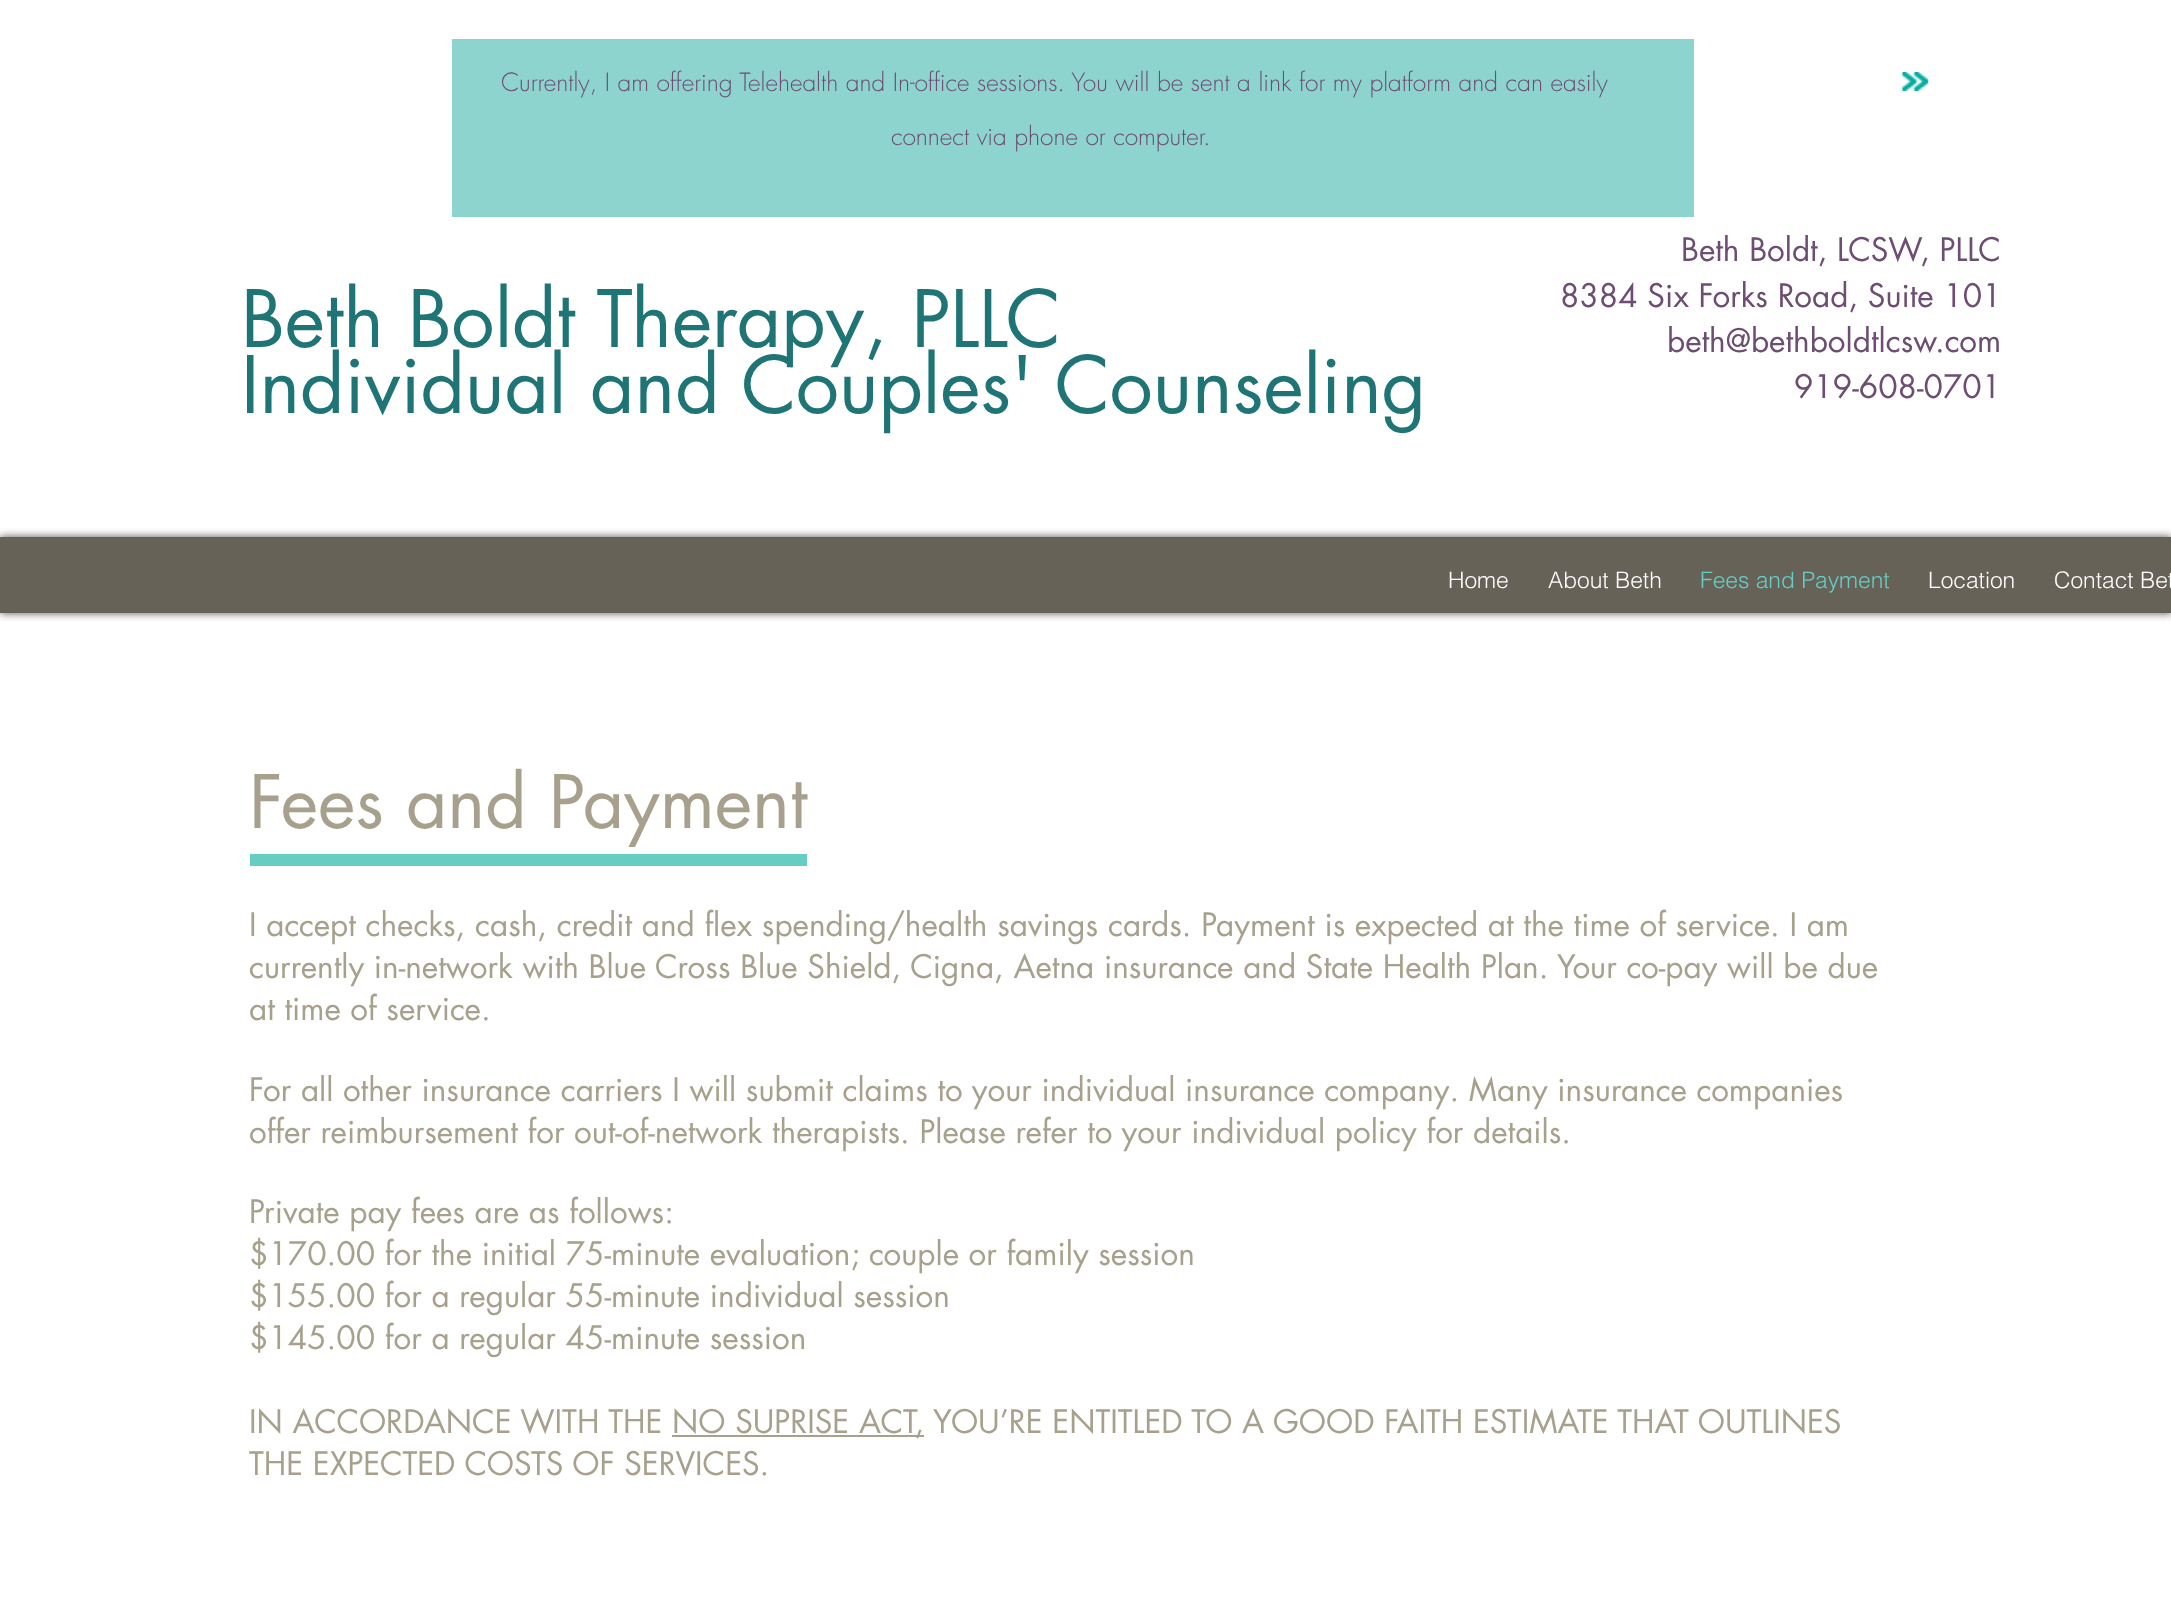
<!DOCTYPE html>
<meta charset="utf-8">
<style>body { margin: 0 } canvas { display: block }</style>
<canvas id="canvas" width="2171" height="1606"></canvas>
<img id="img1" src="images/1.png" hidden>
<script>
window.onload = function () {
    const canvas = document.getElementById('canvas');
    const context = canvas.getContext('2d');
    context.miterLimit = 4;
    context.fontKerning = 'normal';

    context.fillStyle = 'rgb(255, 255, 255)';
    context.fillRect(0, 0, 2171, 1606);
    context.fillStyle = 'rgb(141, 212, 207)';
    context.fillRect(452, 39, 1242, 178);
    context.drawImage(document.getElementById('img1'), 1902, 71, 27, 20);
    context.fillStyle = 'rgba(0, 0, 0, 0.7)';
    context.filter = 'blur(4.5px)';
    context.beginPath();
    context.rect(0, 537, 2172, 76);
    context.fill();
    context.filter = 'none';
    context.fillStyle = 'rgb(102, 98, 88)';
    context.fillRect(0, 537, 2171, 76);
    context.fillStyle = 'rgb(167, 160, 140)';
    context.fillRect(672, 1435, 252, 2);
    context.fillStyle = 'rgb(102, 205, 197)';
    context.fillRect(250, 854, 557, 12);
    context.font = '300 24.5px futura';
    context.fillStyle = 'rgb(109, 77, 114)';
    context.fillText('Currently, I am offering Telehealth and In-office sessions. You will be sent a link for my platform and can easily', 501, 91);
    context.fillText('connect via phone or computer.', 891, 145);
    context.font = '77px futura';
    context.fillStyle = 'rgb(31, 117, 117)';
    context.fillText('Beth Boldt Therapy, PLLC', 241, 347);
    context.fillText('Individual and Couples\' Counseling', 241, 413);
    context.font = '31.5px futura';
    context.fillStyle = 'rgb(109, 77, 114)';
    context.fillText('Beth Boldt, LCSW, PLLC', 1681, 261);
    context.fillText('8384 Six Forks Road, Suite 101', 1560, 307);
    context.fillText('beth@bethboldtlcsw', 1667, 352);
    context.fillText('.com', 1935, 352);
    context.fillText('919-608-0701', 1794, 398);
    context.font = '300 22.75px helvetica';
    context.fillStyle = 'rgb(255, 255, 255)';
    context.fillText('Home', 1448, 588);
    context.fillText('About Beth', 1548, 588);
    context.fillStyle = 'rgb(102, 205, 197)';
    context.fillText('Fees and Payment', 1700, 588);
    context.fillStyle = 'rgb(255, 255, 255)';
    context.fillText('Location', 1928, 588);
    context.fillText('Contact Bet', 2054, 588);
    context.font = '71.75px futura';
    context.fillStyle = 'rgb(167, 160, 140)';
    context.fillText('Fees and Payment', 249, 828);
    context.font = '31.5px futura';
    context.fillText('I accept checks, cash, credit and flex spending/health savings cards. Payment is expected at the time of service. I am', 249, 936);
    context.fillText('currently in-network with Blue Cross Blue Shield, Cigna, Aetna insurance and State Health Plan. Your co-pay will be due', 249, 978);
    context.fillText('at time of service.', 249, 1020);
    context.fillText('For all other insurance carriers I will submit claims to your individual insurance company. Many insurance companies', 249, 1101);
    context.fillText('offer reimbursement for out-of-network therapists. Please refer to your individual policy for details.', 249, 1143);
    context.fillText('Private pay fees are as follows:', 249, 1223);
    context.fillText('$170.00 for the initial 75-minute evaluation; couple or family session', 249, 1265);
    context.fillText('$155.00 for a regular 55-minute individual session', 249, 1307);
    context.fillText('$145.00 for a regular 45-minute session', 249, 1349);
    context.fillText('IN ACCORDANCE WITH THE', 249, 1433);
    context.fillText('NO SUPRISE ACT,', 672, 1433);
    context.fillText('YOU’RE ENTITLED TO A GOOD FAITH ESTIMATE THAT OUTLINES', 933, 1433);
    context.fillText('THE EXPECTED COSTS OF SERVICES.', 249, 1475);
};
</script>
